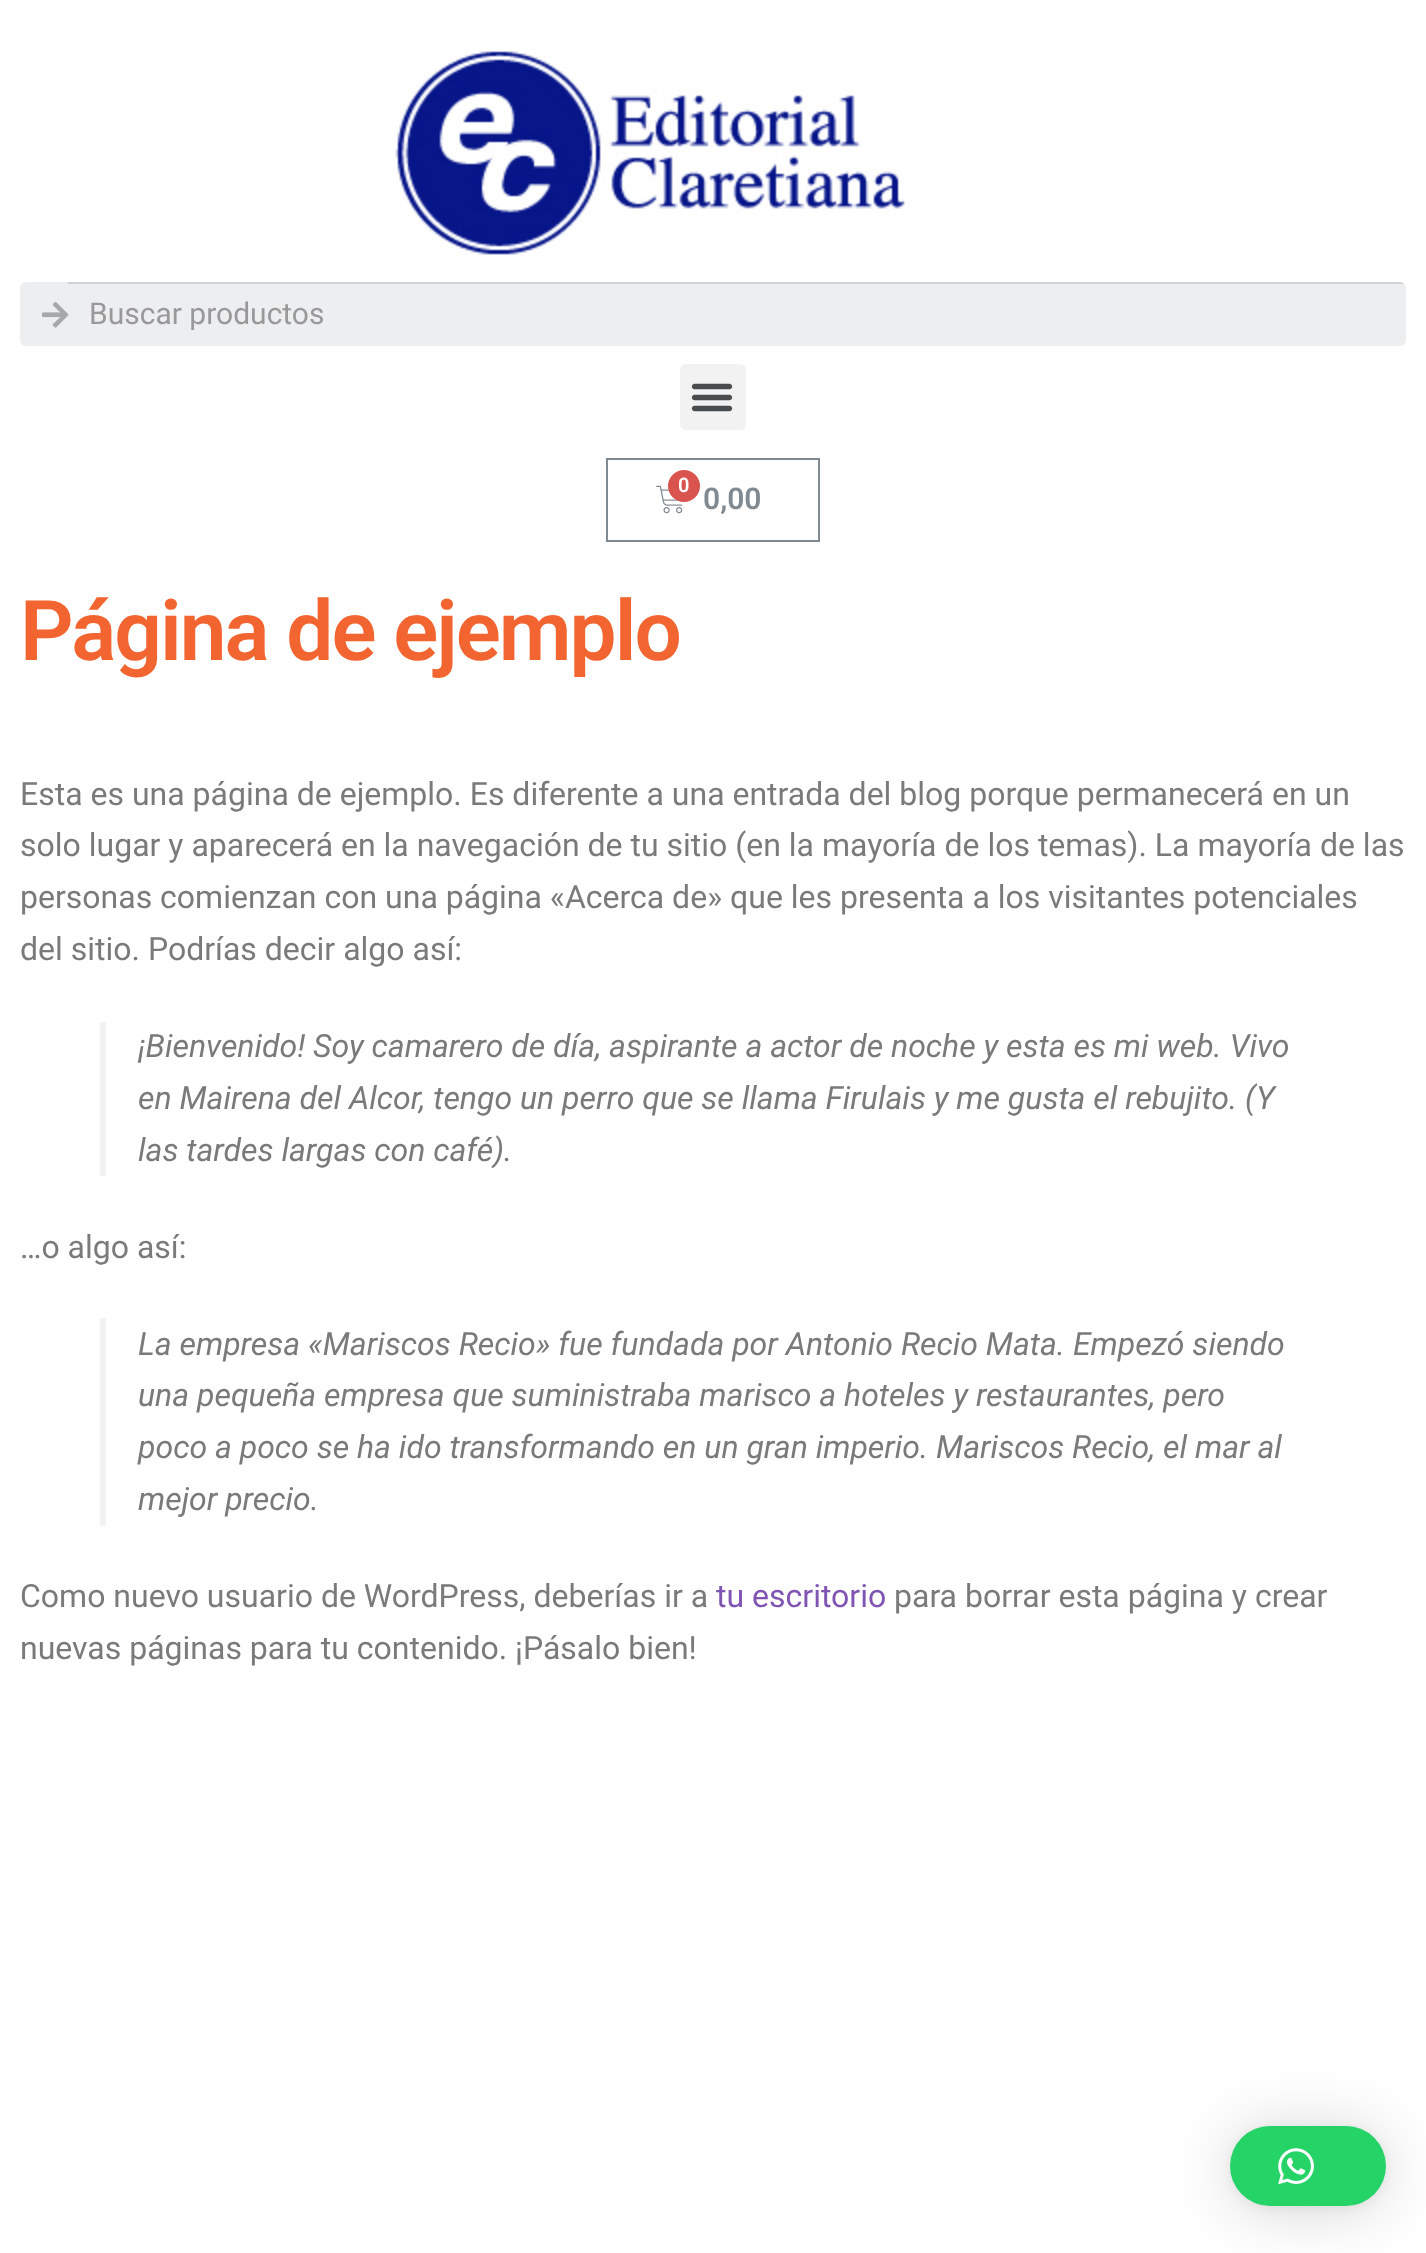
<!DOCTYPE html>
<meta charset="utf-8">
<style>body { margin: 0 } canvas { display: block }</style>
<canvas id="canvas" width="1426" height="2253"></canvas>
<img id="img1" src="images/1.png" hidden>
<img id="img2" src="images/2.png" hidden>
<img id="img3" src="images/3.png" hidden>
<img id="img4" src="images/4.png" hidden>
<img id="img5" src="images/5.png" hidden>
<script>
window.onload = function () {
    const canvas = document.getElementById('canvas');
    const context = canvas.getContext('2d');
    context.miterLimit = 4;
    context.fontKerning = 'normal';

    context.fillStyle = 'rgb(255, 255, 255)';
    context.fillRect(0, 0, 1426, 2253);
    context.drawImage(document.getElementById('img1'), 395, 51, 510, 204);
    context.fillStyle = 'rgb(236, 238, 239)';
    context.beginPath();
    context.roundRect(20, 282, 1386, 64, 6);
    context.fill();
    context.drawImage(document.getElementById('img2'), 42, 302, 27, 26);
    context.save();
    context.beginPath();
    context.roundRect(20, 282, 1386, 64, 6);
    context.clip();
    context.fillStyle = 'rgba(0, 0, 0, 0.12)';
    context.fillRect(68, 282, 1338, 2);
    context.restore();
    context.fillStyle = 'rgb(242, 242, 242)';
    context.beginPath();
    context.roundRect(680, 364, 66, 66, 6);
    context.fill();
    context.drawImage(document.getElementById('img3'), 691, 383, 42, 29);
    context.strokeStyle = 'rgb(129, 138, 145)';
    context.lineWidth = 2;
    context.strokeRect(607, 459, 212, 82);
    context.drawImage(document.getElementById('img4'), 656, 485, 27, 29);
    context.fillStyle = 'rgb(217, 83, 79)';
    context.beginPath();
    context.arc(684, 486, 16, 0, 2 * Math.PI);
    context.fill();
    context.fillStyle = 'rgb(242, 242, 242)';
    context.fillRect(100, 1022, 6, 154);
    context.fillRect(100, 1318, 6, 208);
    context.fillStyle = 'rgba(0, 0, 0, 0.16)';
    context.filter = 'blur(32px)';
    context.beginPath();
    context.roundRect(1230, 2130, 156, 80, 40);
    context.fill();
    context.filter = 'none';
    context.fillStyle = 'rgba(0, 0, 0, 0.06)';
    context.filter = 'blur(6px)';
    context.beginPath();
    context.roundRect(1230, 2128, 156, 80, 40);
    context.fill();
    context.filter = 'none';
    context.fillStyle = 'rgb(37, 211, 102)';
    context.beginPath();
    context.roundRect(1230, 2126, 156, 80, 40);
    context.fill();
    context.drawImage(document.getElementById('img5'), 1278, 2148, 36, 37);
    context.font = '30px Roboto';
    context.fillStyle = 'rgb(153, 153, 154)';
    context.fillText('Buscar productos', 89, 324);
    context.font = '600 20px Roboto';
    context.fillStyle = 'rgb(255, 255, 255)';
    context.fillText('0', 678, 492);
    context.font = '600 30px Roboto';
    context.fillStyle = 'rgb(129, 138, 145)';
    context.fillText('0,00', 703, 509);
    context.letterSpacing = '-2px';
    context.font = '600 83.75px Roboto';
    context.fillStyle = 'rgb(242, 101, 48)';
    context.fillText('Página de ejemplo', 20, 660);
    context.letterSpacing = '0px';
    context.font = '32px Roboto';
    context.fillStyle = 'rgb(122, 122, 122)';
    context.fillText('Esta es una página de ejemplo. Es diferente a una entrada del blog porque permanecerá en un', 20, 805);
    context.fillText('solo lugar y aparecerá en la navegación de tu sitio (en la mayoría de los temas). La mayoría de las', 20, 856);
    context.fillText('personas comienzan con una página «Acerca de» que les presenta a los visitantes potenciales', 20, 908);
    context.fillText('del sitio. Podrías decir algo así:', 20, 960);
    context.font = 'italic 32px Roboto';
    context.fillText('¡Bienvenido! Soy camarero de día, aspirante a actor de noche y esta es mi web. Vivo', 138, 1057);
    context.fillText('en Mairena del Alcor, tengo un perro que se llama Firulais y me gusta el rebujito. (Y', 138, 1109);
    context.fillText('las tardes largas con café).', 138, 1161);
    context.font = '32px Roboto';
    context.fillText('…o algo así:', 20, 1258);
    context.font = 'italic 32px Roboto';
    context.fillText('La empresa «Mariscos Recio» fue fundada por Antonio Recio Mata. Empezó siendo', 138, 1355);
    context.fillText('una pequeña empresa que suministraba marisco a hoteles y restaurantes, pero', 138, 1406);
    context.fillText('poco a poco se ha ido transformando en un gran imperio. Mariscos Recio, el mar al', 138, 1458);
    context.fillText('mejor precio.', 138, 1510);
    context.font = '32px Roboto';
    context.fillText('Como nuevo usuario de WordPress, deberías ir a', 20, 1607);
    context.fillStyle = 'rgb(127, 84, 179)';
    context.fillText('tu escritorio', 716, 1607);
    context.fillStyle = 'rgb(122, 122, 122)';
    context.fillText('para borrar esta página y crear', 894, 1607);
    context.fillText('nuevas páginas para tu contenido. ¡Pásalo bien!', 20, 1659);
};
</script>
